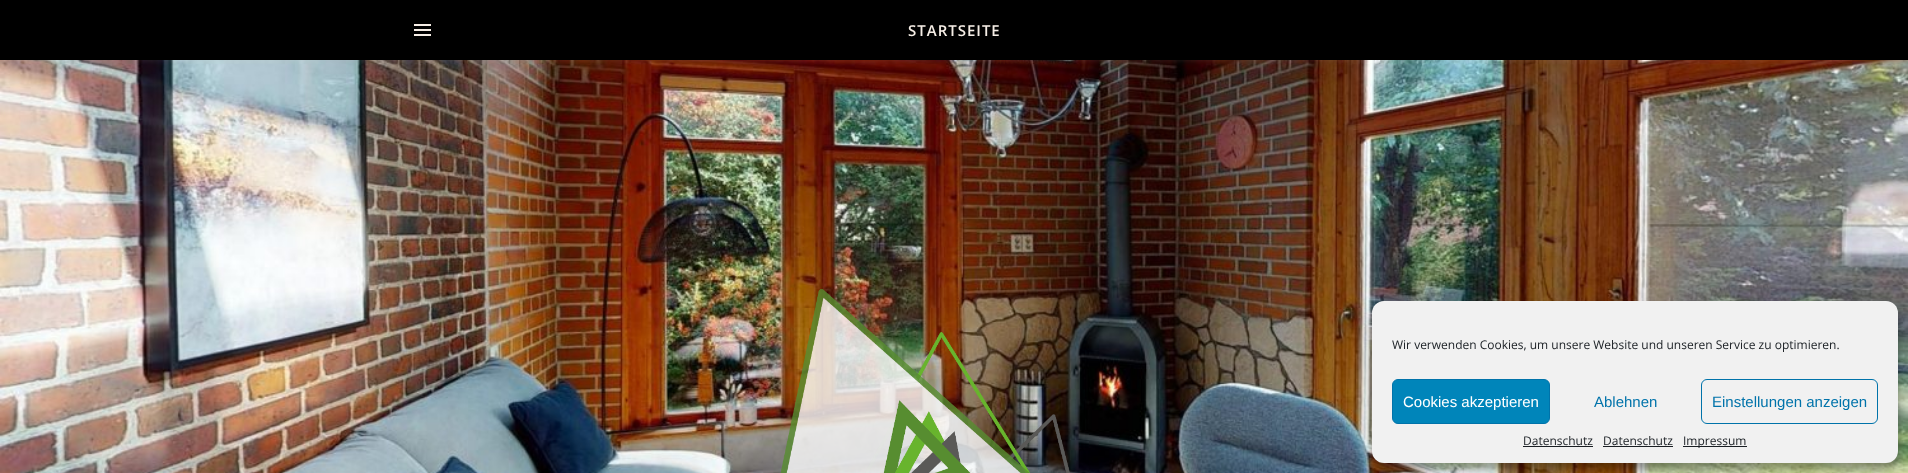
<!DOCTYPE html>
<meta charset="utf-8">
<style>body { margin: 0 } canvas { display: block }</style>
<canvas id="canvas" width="1908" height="473"></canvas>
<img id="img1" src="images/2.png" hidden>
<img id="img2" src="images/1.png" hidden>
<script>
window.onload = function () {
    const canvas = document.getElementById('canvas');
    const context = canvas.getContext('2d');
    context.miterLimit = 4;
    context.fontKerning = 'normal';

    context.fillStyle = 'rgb(255, 255, 255)';
    context.fillRect(0, 0, 1908, 473);
    context.drawImage(document.getElementById('img1'), 0, 60, 1908, 413);
    context.fillStyle = 'rgba(246, 238, 230, 0.1)';
    context.filter = 'blur(2.5px)';
    context.beginPath();
    context.rect(0, 1, 1908, 60);
    context.fill();
    context.filter = 'none';
    context.fillStyle = 'rgb(0, 0, 0)';
    context.fillRect(0, 0, 1908, 60);
    context.fillStyle = 'rgb(246, 238, 230)';
    context.fillRect(414, 24, 17, 2);
    context.fillRect(414, 29, 17, 2);
    context.fillRect(414, 34, 17, 2);
    context.drawImage(document.getElementById('img2'), 780, 288, 290, 185);
    context.fillStyle = 'rgba(0, 0, 0, 0.23)';
    context.filter = 'blur(3px)';
    context.beginPath();
    context.roundRect(1372, 307, 526, 162, 12);
    context.fill();
    context.filter = 'none';
    context.fillStyle = 'rgba(0, 0, 0, 0.19)';
    context.filter = 'blur(10px)';
    context.beginPath();
    context.roundRect(1372, 311, 526, 162, 12);
    context.fill();
    context.filter = 'none';
    context.fillStyle = 'rgb(241, 241, 241)';
    context.beginPath();
    context.roundRect(1372, 301, 526, 162, 12);
    context.fill();
    context.fillStyle = 'rgb(0, 133, 186)';
    context.beginPath();
    context.roundRect(1392.5, 379.5, 157, 44, 5.5);
    context.fill();
    context.strokeStyle = 'rgb(0, 115, 170)';
    context.stroke();
    context.beginPath();
    context.roundRect(1701.5, 379.5, 176, 44, 5.5);
    context.stroke();
    context.fillStyle = 'rgb(25, 30, 35)';
    context.fillRect(1523, 446, 70, 1);
    context.fillRect(1603, 446, 70, 1);
    context.fillRect(1683, 446, 64, 1);
    context.letterSpacing = '1px';
    context.font = '600 15px Open Sans';
    context.fillStyle = 'rgb(246, 238, 230)';
    context.fillText('STARTSEITE', 908, 36);
    context.letterSpacing = '0px';
    context.font = '12px Open Sans';
    context.fillStyle = 'rgb(25, 30, 35)';
    context.fillText('Wir verwenden Cookies, um unsere Website und unseren Service zu optimieren.', 1392, 349);
    context.font = '15px Liberation Sans';
    context.fillStyle = 'rgb(255, 255, 255)';
    context.fillText('Cookies akzeptieren', 1403, 407);
    context.fillStyle = 'rgb(0, 115, 170)';
    context.fillText('Ablehnen', 1594, 407);
    context.fillText('Einstellungen anzeigen', 1712, 407);
    context.font = '12px Open Sans';
    context.fillStyle = 'rgb(25, 30, 35)';
    context.fillText('Datenschutz', 1523, 445);
    context.fillText('Datenschutz', 1603, 445);
    context.fillText('Impressum', 1683, 445);
};
</script>
